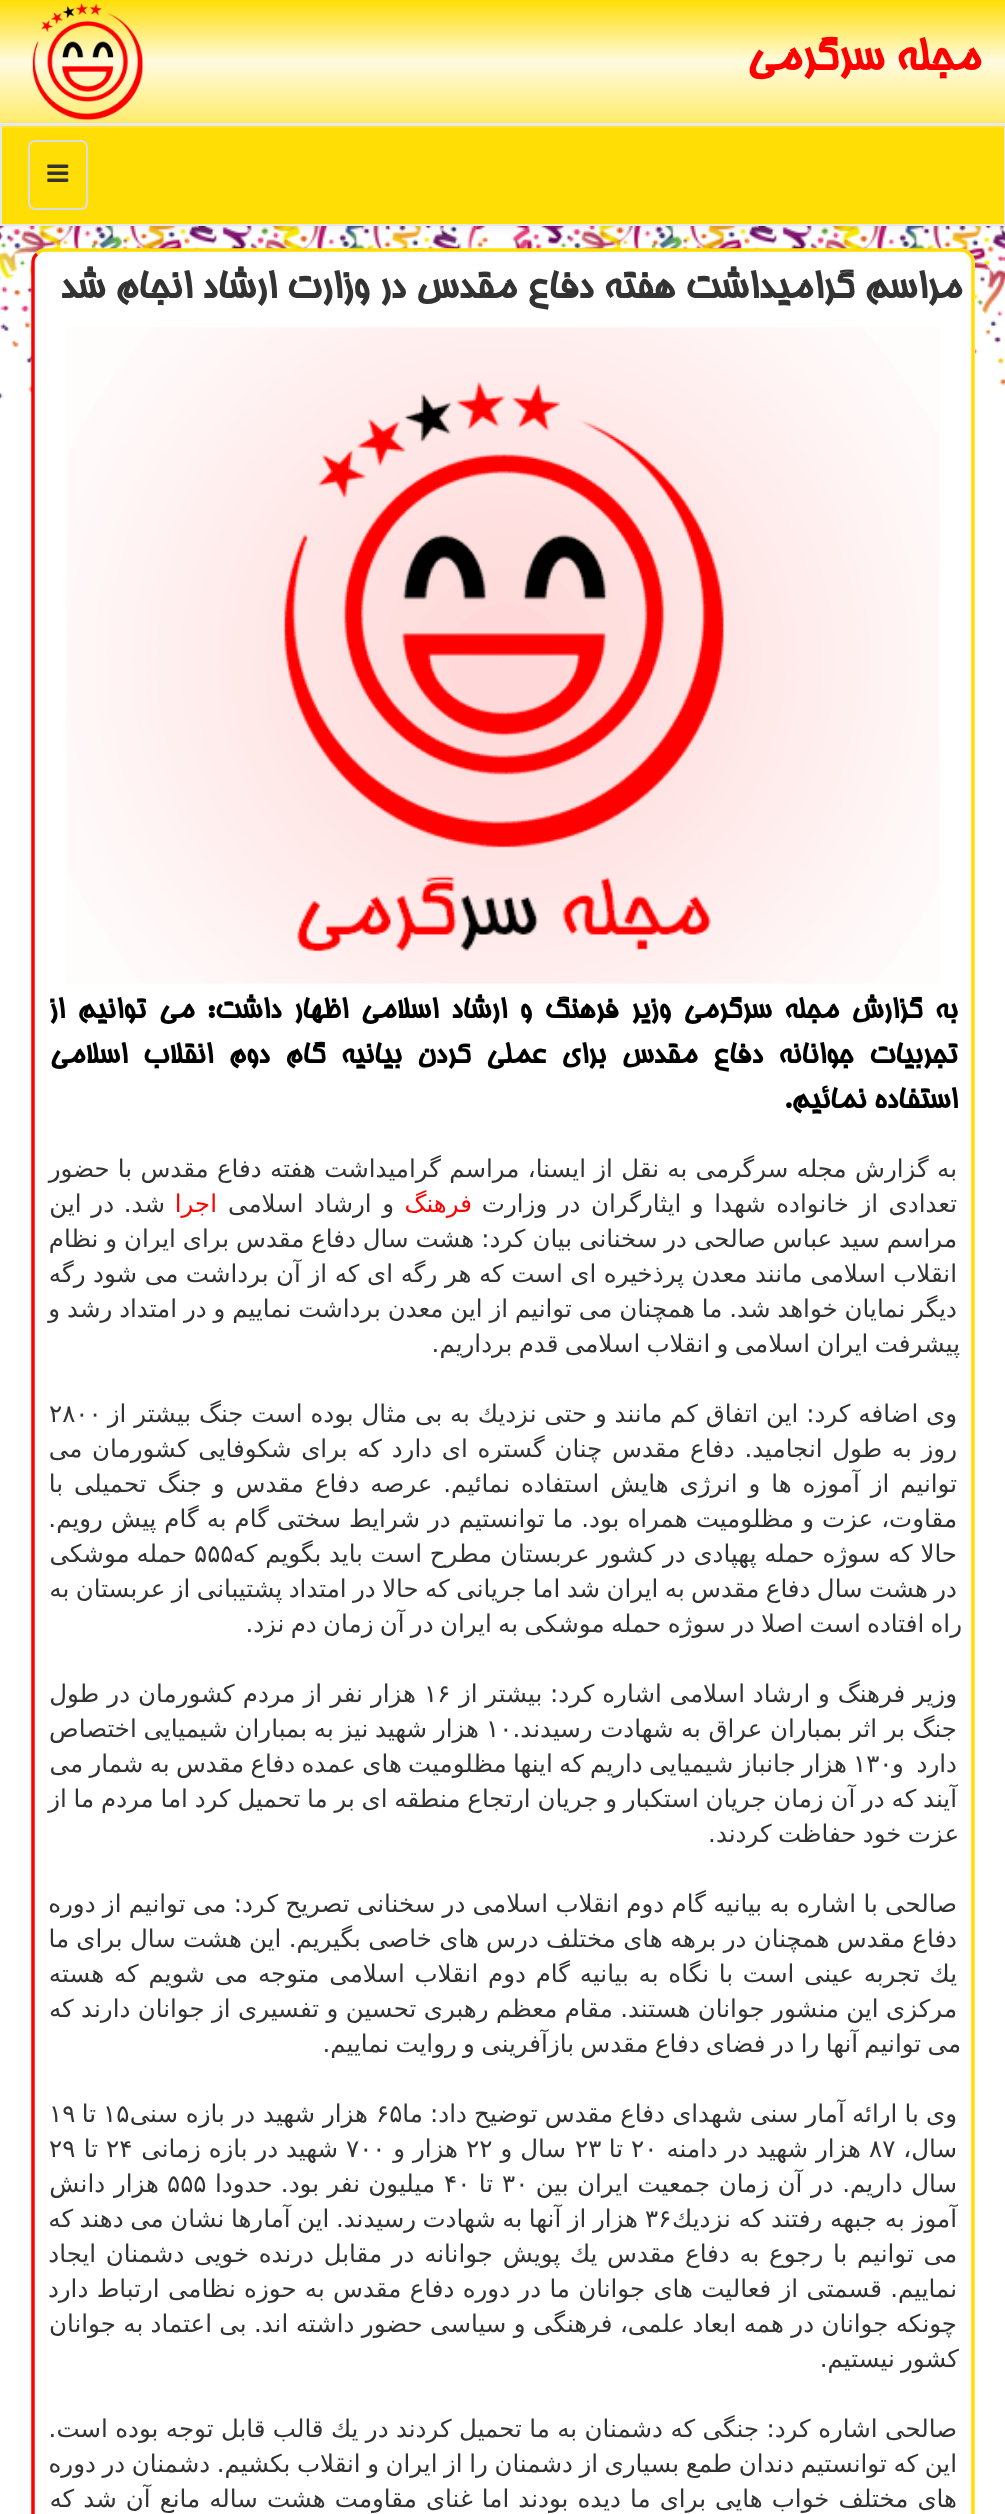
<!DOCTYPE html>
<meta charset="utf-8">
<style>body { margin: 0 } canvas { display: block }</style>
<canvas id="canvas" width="1005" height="2514"></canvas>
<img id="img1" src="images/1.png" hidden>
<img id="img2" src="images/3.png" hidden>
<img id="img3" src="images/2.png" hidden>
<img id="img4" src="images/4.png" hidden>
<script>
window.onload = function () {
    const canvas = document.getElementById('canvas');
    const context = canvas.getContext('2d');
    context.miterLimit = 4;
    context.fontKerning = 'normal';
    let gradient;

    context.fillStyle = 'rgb(255, 255, 255)';
    context.fillRect(0, 0, 1005, 2514);
    gradient = context.createLinearGradient(503, 0, 503, 123);
    gradient.addColorStop(0, 'rgb(255, 222, 5)');
    gradient.addColorStop(0.5, 'rgb(255, 251, 223)');
    gradient.addColorStop(1, 'rgb(255, 236, 109)');
    context.fillStyle = gradient;
    context.fillRect(0, 0, 1005, 123);
    context.fillStyle = 'rgb(238, 238, 238)';
    context.fillRect(0, 123, 1005, 1);
    context.drawImage(document.getElementById('img1'), 32, 3, 111, 117);
    context.drawImage(document.getElementById('img2'), 0, 226, 1005, 174);
    context.fillStyle = 'rgba(0, 0, 0, 0.07)';
    context.filter = 'blur(4.5px)';
    context.beginPath();
    context.rect(0, 126, 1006, 102);
    context.fill();
    context.filter = 'none';
    context.fillStyle = 'rgb(255, 222, 5)';
    context.fillRect(2, 128, 1002, 96);
    context.fillStyle = 'rgb(255, 227, 43)';
    context.fillRect(2, 126, 1003, 2);
    context.strokeStyle = 'rgb(231, 231, 231)';
    context.lineWidth = 2;
    context.strokeRect(1, 125, 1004, 100);
    context.beginPath();
    context.roundRect(29, 141, 58, 68, 6);
    context.strokeStyle = 'rgb(221, 221, 221)';
    context.stroke();
    context.drawImage(document.getElementById('img3'), 47, 164, 22, 18);
    context.fillStyle = 'rgb(255, 255, 255)';
    context.beginPath();
    context.roundRect(32, 249, 943, 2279, 14);
    context.fill();
    context.beginPath();
    context.moveTo(37, 254);
    context.bezierCurveTo(39, 251.5, 42.5, 250, 45.5, 250);
    context.lineTo(961, 250);
    context.bezierCurveTo(964, 250, 967, 251.5, 969.5, 254);
    context.bezierCurveTo(971.5, 256, 973, 259.5, 973, 262.5);
    context.lineTo(973, 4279);
    context.bezierCurveTo(973, 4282, 971.5, 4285, 969.5, 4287.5);
    context.bezierCurveTo(967, 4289.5, 964, 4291, 961, 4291);
    context.lineTo(45.5, 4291);
    context.bezierCurveTo(42.5, 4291, 39, 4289.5, 37, 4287.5);
    context.strokeStyle = 'rgb(255, 222, 5)';
    context.lineWidth = 3.5;
    context.stroke();
    context.beginPath();
    context.moveTo(37, 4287.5);
    context.bezierCurveTo(34.5, 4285, 33, 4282, 33, 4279);
    context.lineTo(33, 262.5);
    context.bezierCurveTo(33, 259.5, 34.5, 256, 37, 254);
    context.strokeStyle = 'rgb(255, 0, 0)';
    context.stroke();
    context.drawImage(document.getElementById('img4'), 66, 327, 874, 657);
    context.direction = 'rtl';
    context.font = 'bold 49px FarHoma';
    context.fillStyle = 'rgb(255, 0, 0)';
    context.fillText('مجله سرگرمی', 980, 70);
    context.font = 'bold 42px FarHoma';
    context.fillStyle = 'rgb(51, 51, 51)';
    context.fillText('مراسم گرامیداشت هفته دفاع مقدس در وزارت ارشاد انجام شد', 961, 298);
    context.wordSpacing = '5px';
    context.font = 'bold 31.5px FarHoma';
    context.fillStyle = 'rgb(0, 0, 0)';
    context.fillText('به گزارش مجله سرگرمی وزیر فرهنگ و ارشاد اسلامی اظهار داشت: می توانیم از', 957, 1018);
    context.wordSpacing = '8px';
    context.fillText('تجربیات جوانانه دفاع مقدس برای عملی كردن بیانیه گام دوم انقلاب اسلامی', 957, 1063);
    context.wordSpacing = '0px';
    context.fillText('استفاده نمائیم.', 957, 1108);
    context.wordSpacing = '0.5px';
    context.font = '24.5px DejaVu Sans';
    context.fillStyle = 'rgb(51, 51, 51)';
    context.fillText('به گزارش مجله سرگرمی به نقل از ایسنا، مراسم گرامیداشت هفته دفاع مقدس با حضور', 957, 1177);
    context.wordSpacing = '2.75px';
    context.fillText('تعدادی از خانواده شهدا و ایثارگران در وزارت', 957, 1212);
    context.wordSpacing = '0px';
    context.fillStyle = 'rgb(255, 0, 0)';
    context.fillText('فرهنگ', 472, 1212);
    context.wordSpacing = '2.75px';
    context.fillStyle = 'rgb(51, 51, 51)';
    context.fillText('و ارشاد اسلامی', 394, 1212);
    context.wordSpacing = '0px';
    context.fillStyle = 'rgb(255, 0, 0)';
    context.fillText('اجرا', 217, 1212);
    context.wordSpacing = '2px';
    context.fillStyle = 'rgb(51, 51, 51)';
    context.fillText('شد. در این', 165, 1212);
    context.wordSpacing = '-0.9px';
    context.fillText('مراسم سید عباس صالحی در سخنانی بیان كرد: هشت سال دفاع مقدس برای ایران و نظام', 957, 1247);
    context.wordSpacing = '-0.2px';
    context.fillText('انقلاب اسلامی مانند معدن پرذخیره ای است كه هر رگه ای كه از آن برداشت می شود رگه', 957, 1282);
    context.wordSpacing = '-0.9px';
    context.fillText('دیگر نمایان خواهد شد. ما همچنان می توانیم از این معدن برداشت نماییم و در امتداد رشد و', 957, 1317);
    context.wordSpacing = '-1.5px';
    context.fillText('پیشرفت ایران اسلامی و انقلاب اسلامی قدم برداریم.', 960, 1352);
    context.wordSpacing = '0px';
    context.fillText('وی اضافه كرد: این اتفاق كم مانند و حتی نزدیك به بی مثال بوده است جنگ بیشتر از', 957, 1422);
    context.direction = 'ltr';
    context.fillText('۲۸۰۰', 49, 1422);
    context.wordSpacing = '1.9px';
    context.direction = 'rtl';
    context.fillText('روز به طول انجامید. دفاع مقدس چنان گستره ای دارد كه برای شكوفایی كشورمان می', 957, 1457);
    context.wordSpacing = '3.1px';
    context.fillText('توانیم از آموزه ها و انرژی هایش استفاده نمائیم. عرصه دفاع مقدس و جنگ تحمیلی با', 957, 1492);
    context.wordSpacing = '0.2px';
    context.fillText('مقاوت، عزت و مظلومیت همراه بود. ما توانستیم در شرایط سختی گام به گام پیش رویم.', 957, 1527);
    context.wordSpacing = '-0.1px';
    context.fillText('حالا كه سوژه حمله پهپادی در كشور عربستان مطرح است باید بگویم كه', 957, 1562);
    context.wordSpacing = '0px';
    context.direction = 'ltr';
    context.fillText('۵۵۵', 194, 1562);
    context.wordSpacing = '-1px';
    context.direction = 'rtl';
    context.fillText('حمله موشكی', 187, 1562);
    context.wordSpacing = '-1.4px';
    context.fillText('در هشت سال دفاع مقدس به ایران شد اما جریانی كه حالا در امتداد پشتیبانی از عربستان به', 957, 1597);
    context.wordSpacing = '-1.5px';
    context.fillText('راه افتاده است اصلا در سوژه حمله موشكی به ایران در آن زمان دم نزد.', 962, 1632);
    context.wordSpacing = '0px';
    context.fillText('وزیر فرهنگ و ارشاد اسلامی اشاره كرد: بیشتر از', 957, 1702);
    context.direction = 'ltr';
    context.fillText('۱۶', 424, 1702);
    context.wordSpacing = '0.25px';
    context.direction = 'rtl';
    context.fillText('هزار نفر از مردم كشورمان در طول', 416, 1702);
    context.wordSpacing = '-0.25px';
    context.fillText('جنگ بر اثر بمباران عراق به شهادت رسیدند.', 957, 1737);
    context.wordSpacing = '0px';
    context.direction = 'ltr';
    context.fillText('۱۰', 486, 1737);
    context.wordSpacing = '-1px';
    context.direction = 'rtl';
    context.fillText('هزار شهید نیز به بمباران شیمیایی اختصاص', 479, 1737);
    context.wordSpacing = '5px';
    context.fillText('دارد و', 957, 1772);
    context.wordSpacing = '-1.5px';
    context.fillText('هزار جانباز شیمیایی داریم كه اینها مظلومیت های عمده دفاع مقدس به شمار می', 847, 1772);
    context.wordSpacing = '0px';
    context.direction = 'ltr';
    context.fillText('۱۳۰', 853, 1772);
    context.wordSpacing = '-1px';
    context.direction = 'rtl';
    context.fillText('آیند كه در آن زمان جریان استكبار و جریان ارتجاع منطقه ای بر ما تحمیل كرد اما مردم ما از', 957, 1807);
    context.wordSpacing = '-1.5px';
    context.fillText('عزت خود حفاظت كردند.', 959, 1842);
    context.wordSpacing = '-0.5px';
    context.fillText('صالحی با اشاره به بیانیه گام دوم انقلاب اسلامی در سخنانی تصریح كرد: می توانیم از دوره', 957, 1912);
    context.fillText('دفاع مقدس همچنان در برهه های مختلف درس های خاصی بگیریم. این هشت سال برای ما', 957, 1947);
    context.wordSpacing = '2px';
    context.fillText('یك تجربه عینی است با نگاه به بیانیه گام دوم انقلاب اسلامی متوجه می شویم كه هسته', 957, 1982);
    context.wordSpacing = '-0.4px';
    context.fillText('مركزی این منشور جوانان هستند. مقام معظم رهبری تحسین و تفسیری از جوانان دارند كه', 957, 2017);
    context.wordSpacing = '-1.5px';
    context.fillText('می توانیم آنها را در فضای دفاع مقدس بازآفرینی و روایت نماییم.', 961, 2052);
    context.wordSpacing = '-0.6px';
    context.fillText('وی با ارائه آمار سنی شهدای دفاع مقدس توضیح داد: ما', 957, 2122);
    context.wordSpacing = '0px';
    context.direction = 'ltr';
    context.fillText('۶۵', 376, 2122);
    context.direction = 'rtl';
    context.fillText('هزار شهید در بازه سنی', 368, 2122);
    context.direction = 'ltr';
    context.fillText('۱۵', 103, 2122);
    context.direction = 'rtl';
    context.fillText('تا', 96, 2122);
    context.direction = 'ltr';
    context.fillText('۱۹', 49, 2122);
    context.direction = 'rtl';
    context.fillText('سال،', 957, 2157);
    context.direction = 'ltr';
    context.fillText('۸۷', 869, 2157);
    context.direction = 'rtl';
    context.fillText('هزار شهید در دامنه', 861, 2157);
    context.direction = 'ltr';
    context.fillText('۲۰', 631, 2157);
    context.direction = 'rtl';
    context.fillText('تا', 623, 2157);
    context.direction = 'ltr';
    context.fillText('۲۳', 575, 2157);
    context.direction = 'rtl';
    context.fillText('سال و', 566, 2157);
    context.direction = 'ltr';
    context.fillText('۲۲', 466, 2157);
    context.direction = 'rtl';
    context.fillText('هزار و', 458, 2157);
    context.direction = 'ltr';
    context.fillText('۷۰۰', 346, 2157);
    context.direction = 'rtl';
    context.fillText('شهید در بازه زمانی', 338, 2157);
    context.direction = 'ltr';
    context.fillText('۲۴', 106, 2157);
    context.direction = 'rtl';
    context.fillText('تا', 98, 2157);
    context.direction = 'ltr';
    context.fillText('۲۹', 49, 2157);
    context.wordSpacing = '0.75px';
    context.direction = 'rtl';
    context.fillText('سال داریم. در آن زمان جمعیت ایران بین', 957, 2192);
    context.wordSpacing = '0px';
    context.direction = 'ltr';
    context.fillText('۳۰', 502, 2192);
    context.direction = 'rtl';
    context.fillText('تا', 493, 2192);
    context.direction = 'ltr';
    context.fillText('۴۰', 444, 2192);
    context.wordSpacing = '0.5px';
    context.direction = 'rtl';
    context.fillText('میلیون نفر بود. حدودا', 435, 2192);
    context.wordSpacing = '0px';
    context.direction = 'ltr';
    context.fillText('۵۵۵', 167, 2192);
    context.wordSpacing = '1px';
    context.direction = 'rtl';
    context.fillText('هزار دانش', 159, 2192);
    context.wordSpacing = '0px';
    context.fillText('آموز به جبهه رفتند كه نزدیك', 957, 2227);
    context.wordSpacing = '-1.25px';
    context.fillText('هزار از آنها به شهادت رسیدند. این آمارها نشان می دهند كه', 638, 2227);
    context.wordSpacing = '0px';
    context.direction = 'ltr';
    context.fillText('۳۶', 645, 2227);
    context.wordSpacing = '1.9px';
    context.direction = 'rtl';
    context.fillText('می توانیم با رجوع به دفاع مقدس یك پویش جوانانه در مقابل درنده خویی دشمنان ایجاد', 957, 2262);
    context.wordSpacing = '0.5px';
    context.fillText('نماییم. قسمتی از فعالیت های جوانان ما در دوره دفاع مقدس به حوزه نظامی ارتباط دارد', 957, 2297);
    context.wordSpacing = '-0.4px';
    context.fillText('چونكه جوانان در همه ابعاد علمی، فرهنگی و سیاسی حضور داشته اند. بی اعتماد به جوانان', 957, 2332);
    context.wordSpacing = '-1.5px';
    context.fillText('كشور نیستیم.', 959, 2367);
    context.wordSpacing = '-0.4px';
    context.fillText('صالحی اشاره كرد: جنگی كه دشمنان به ما تحمیل كردند در یك قالب قابل توجه بوده است.', 957, 2437);
    context.wordSpacing = '-1.25px';
    context.fillText('این كه توانستیم دندان طمع بسیاری از دشمنان را از ایران و انقلاب بكشیم. دشمنان در دوره', 957, 2472);
    context.wordSpacing = '1.3px';
    context.fillText('های مختلف خواب هایی برای ما دیده بودند اما غنای مقاومت هشت ساله مانع آن شد كه', 957, 2507);
};
</script>
